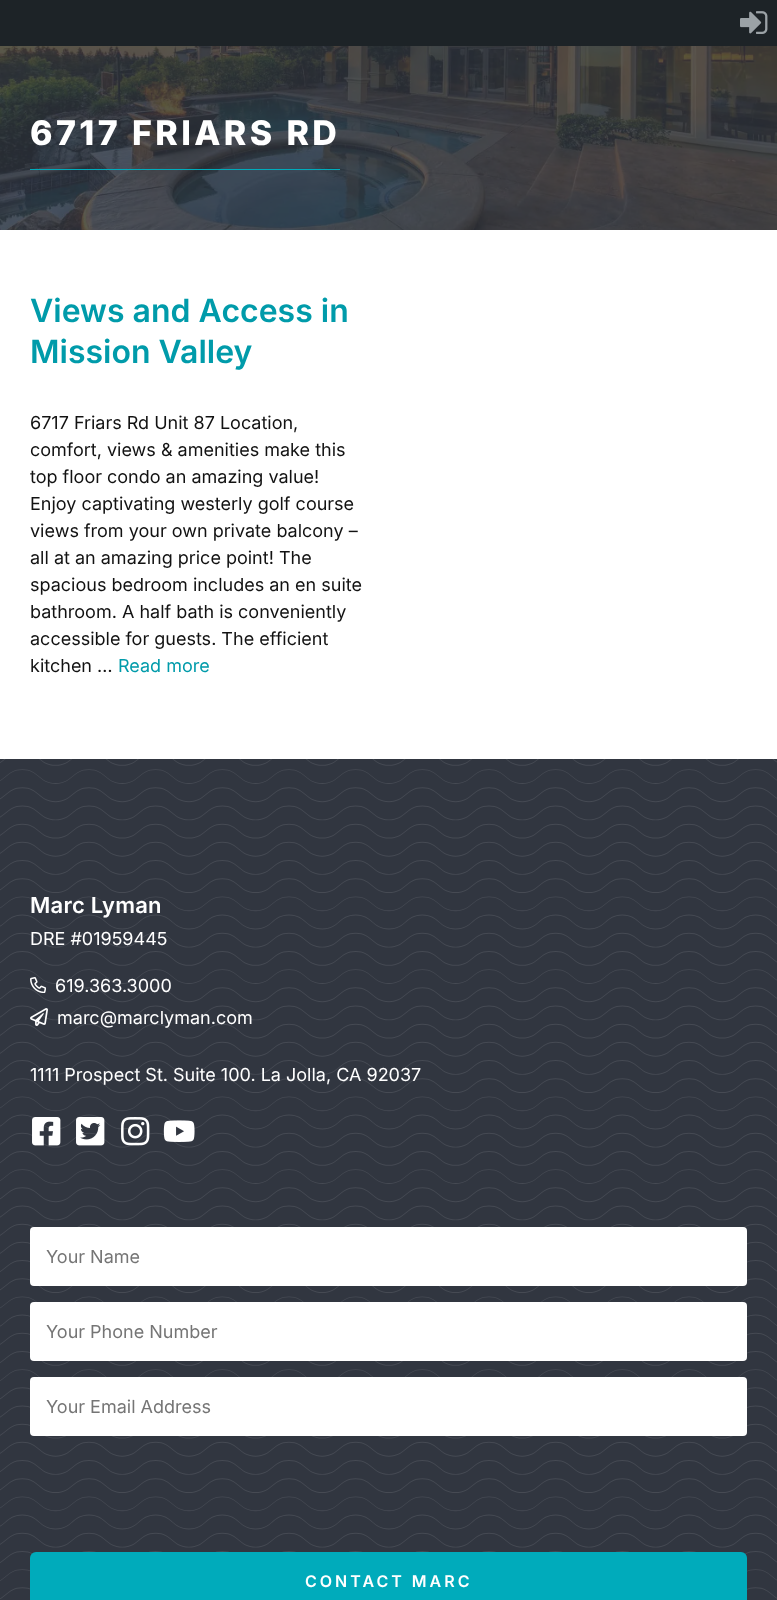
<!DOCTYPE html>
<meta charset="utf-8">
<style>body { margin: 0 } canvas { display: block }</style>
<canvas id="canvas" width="777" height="1600"></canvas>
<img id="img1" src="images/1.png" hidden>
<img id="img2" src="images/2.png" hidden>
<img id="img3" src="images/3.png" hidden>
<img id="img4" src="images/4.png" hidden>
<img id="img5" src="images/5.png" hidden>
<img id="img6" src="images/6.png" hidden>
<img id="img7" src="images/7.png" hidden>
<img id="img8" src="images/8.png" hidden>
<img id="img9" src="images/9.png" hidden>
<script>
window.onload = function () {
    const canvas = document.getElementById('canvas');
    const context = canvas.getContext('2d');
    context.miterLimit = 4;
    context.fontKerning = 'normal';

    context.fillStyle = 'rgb(255, 255, 255)';
    context.fillRect(0, 0, 777, 1600);
    context.fillStyle = 'rgb(29, 35, 39)';
    context.fillRect(0, 0, 777, 46);
    context.drawImage(document.getElementById('img1'), 740, 11, 28, 23);
    context.fillStyle = 'rgb(49, 54, 64)';
    context.fillRect(0, 46, 777, 184);
    context.drawImage(document.getElementById('img2'), 0, 46, 777, 184);
    context.fillStyle = 'rgb(0, 171, 187)';
    context.fillRect(30, 169, 310, 1);
    context.fillStyle = 'rgb(49, 54, 64)';
    context.fillRect(0, 759, 777, 841);
    context.drawImage(document.getElementById('img3'), 0, 759, 777, 840);
    context.drawImage(document.getElementById('img4'), 30, 977, 16, 16);
    context.drawImage(document.getElementById('img5'), 30, 1008, 18, 18);
    context.drawImage(document.getElementById('img6'), 32, 1117, 29, 29);
    context.drawImage(document.getElementById('img7'), 76, 1117, 29, 29);
    context.drawImage(document.getElementById('img8'), 121, 1117, 29, 29);
    context.drawImage(document.getElementById('img9'), 163, 1120, 32, 22);
    context.fillStyle = 'rgb(255, 255, 255)';
    context.beginPath();
    context.roundRect(30, 1227, 717, 59, 4);
    context.fill();
    context.beginPath();
    context.roundRect(30, 1302, 717, 59, 4);
    context.fill();
    context.beginPath();
    context.roundRect(30, 1377, 717, 59, 4);
    context.fill();
    context.fillStyle = 'rgb(0, 171, 187)';
    context.beginPath();
    context.roundRect(30, 1552, 717, 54, 6);
    context.fill();
    context.letterSpacing = '3.4px';
    context.font = '800 34px Inter';
    context.fillStyle = 'rgb(255, 255, 255)';
    context.fillText('6717 FRIARS RD', 30, 145);
    context.letterSpacing = '0px';
    context.font = '600 32px Inter';
    context.fillStyle = 'rgb(0, 155, 170)';
    context.fillText('Views and Access in', 30, 322);
    context.fillText('Mission Valley', 30, 363);
    context.font = '18px Inter';
    context.fillStyle = 'rgb(18, 18, 18)';
    context.fillText('6717 Friars Rd Unit 87 Location,', 30, 429);
    context.fillText('comfort, views & amenities make this', 30, 456);
    context.fillText('top floor condo an amazing value!', 30, 483);
    context.fillText('Enjoy captivating westerly golf course', 30, 510);
    context.fillText('views from your own private balcony –', 30, 537);
    context.fillText('all at an amazing price point! The', 30, 564);
    context.fillText('spacious bedroom includes an en suite', 30, 591);
    context.fillText('bathroom. A half bath is conveniently', 30, 618);
    context.fillText('accessible for guests. The efficient', 30, 645);
    context.fillText('kitchen …', 30, 672);
    context.fillStyle = 'rgb(0, 155, 170)';
    context.fillText('Read more', 118, 672);
    context.letterSpacing = '0.25px';
    context.font = '600 22px Inter';
    context.fillStyle = 'rgb(255, 255, 255)';
    context.fillText('Marc Lyman', 30, 913);
    context.letterSpacing = '0px';
    context.font = '18px Inter';
    context.fillText('DRE #01959445', 30, 945);
    context.fillText('619.363.3000', 55, 992);
    context.fillText('marc@marclyman.com', 57, 1024);
    context.fillText('1111 Prospect St. Suite 100. La Jolla, CA 92037', 30, 1081);
    context.fillStyle = 'rgb(117, 117, 117)';
    context.fillText('Your Name', 46, 1263);
    context.fillText('Your Phone Number', 46, 1338);
    context.fillText('Your Email Address', 46, 1413);
    context.letterSpacing = '3px';
    context.font = '600 16px Inter';
    context.fillStyle = 'rgb(255, 255, 255)';
    context.fillText('CONTACT MARC', 305, 1587);
};
</script>
